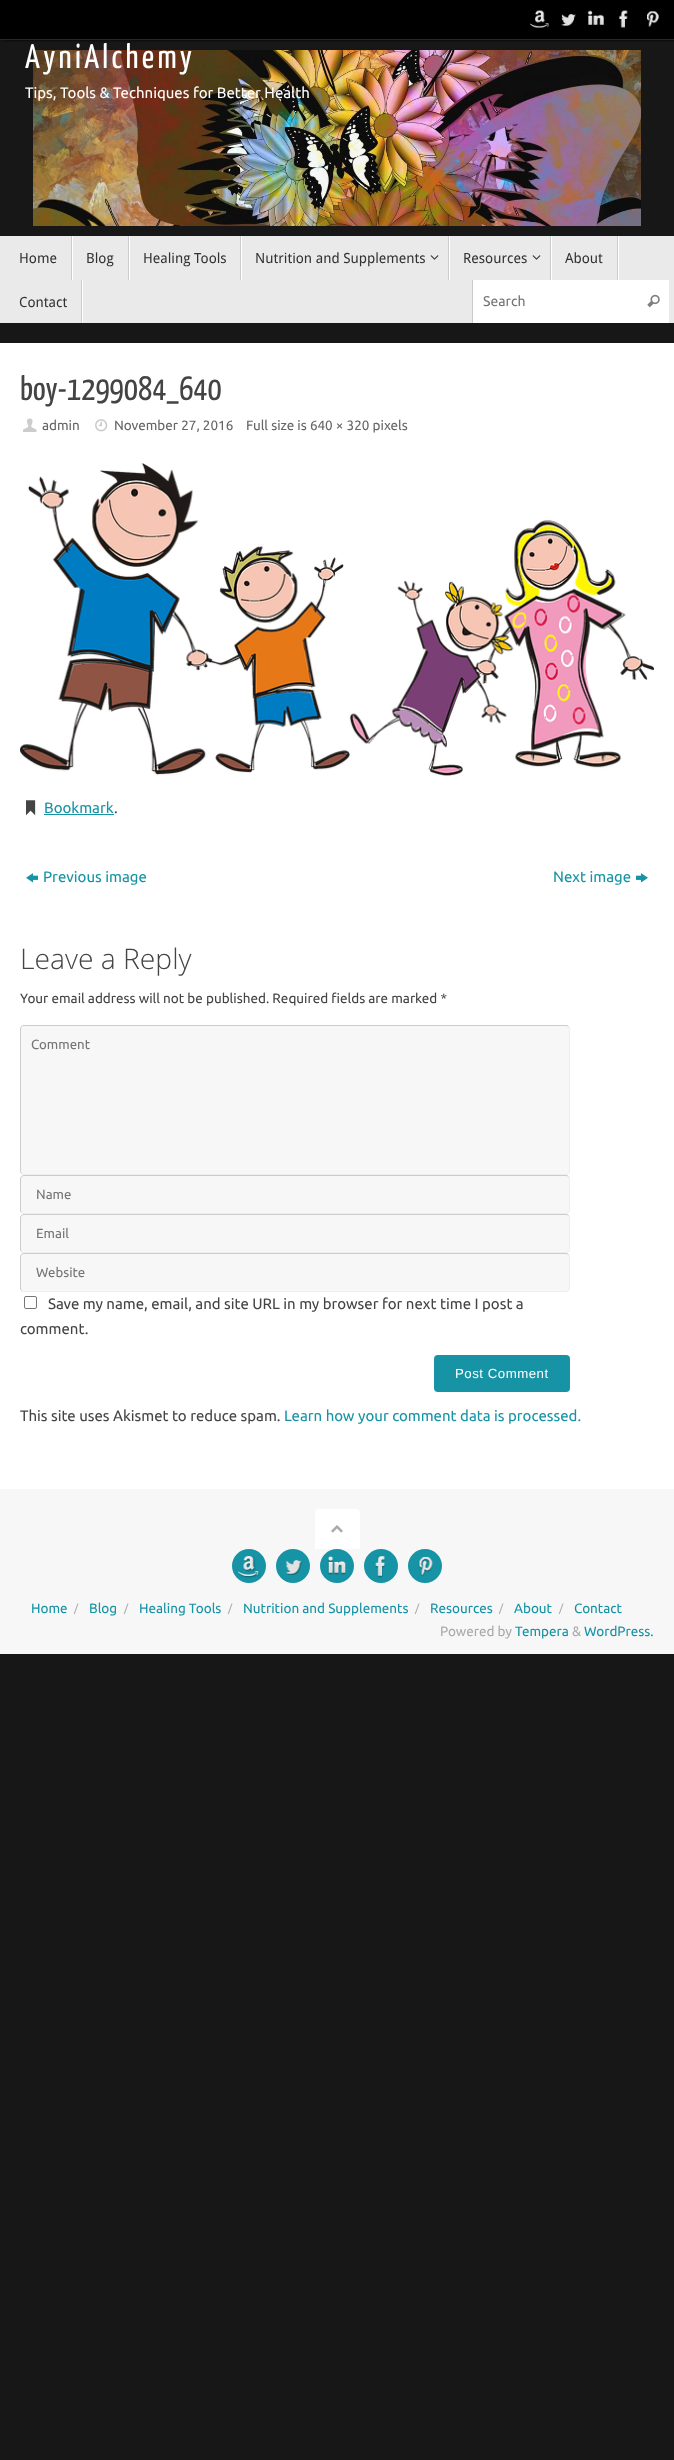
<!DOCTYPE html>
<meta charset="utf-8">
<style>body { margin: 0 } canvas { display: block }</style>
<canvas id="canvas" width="674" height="2460"></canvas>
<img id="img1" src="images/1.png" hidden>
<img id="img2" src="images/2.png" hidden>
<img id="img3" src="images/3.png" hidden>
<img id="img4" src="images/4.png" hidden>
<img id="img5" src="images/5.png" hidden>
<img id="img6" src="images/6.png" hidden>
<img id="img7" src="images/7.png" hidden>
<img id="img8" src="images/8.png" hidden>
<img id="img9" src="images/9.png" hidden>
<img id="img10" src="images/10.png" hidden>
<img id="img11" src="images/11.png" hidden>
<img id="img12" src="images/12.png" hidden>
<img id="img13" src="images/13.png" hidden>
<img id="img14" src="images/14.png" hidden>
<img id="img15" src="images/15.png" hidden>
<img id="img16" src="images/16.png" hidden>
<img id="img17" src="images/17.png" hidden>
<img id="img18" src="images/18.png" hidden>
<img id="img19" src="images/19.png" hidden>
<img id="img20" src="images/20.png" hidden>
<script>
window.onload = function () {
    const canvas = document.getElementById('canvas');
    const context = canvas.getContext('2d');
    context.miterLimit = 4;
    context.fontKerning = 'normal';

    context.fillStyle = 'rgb(23, 23, 23)';
    context.fillRect(0, 0, 674, 2460);
    context.fillStyle = 'rgb(0, 0, 0)';
    context.filter = 'blur(1.5px)';
    context.beginPath();
    context.rect(3, 0, 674, 40);
    context.fill();
    context.filter = 'none';
    context.fillRect(0, 0, 674, 39);
    context.fillStyle = 'rgb(40, 40, 40)';
    context.fillRect(0, 39, 674, 1);
    context.drawImage(document.getElementById('img1'), 529, 10, 20, 18);
    context.drawImage(document.getElementById('img2'), 561, 14, 15, 12);
    context.drawImage(document.getElementById('img3'), 587, 10, 17, 15);
    context.drawImage(document.getElementById('img4'), 619, 10, 9, 18);
    context.drawImage(document.getElementById('img5'), 647, 11, 12, 16);
    context.drawImage(document.getElementById('img6'), 33, 50, 608, 176);
    context.fillStyle = 'rgb(234, 234, 234)';
    context.fillRect(0, 236, 674, 87);
    context.fillStyle = 'rgb(255, 255, 255)';
    context.fillRect(72, 236, 1, 44);
    context.fillStyle = 'rgb(204, 204, 204)';
    context.fillRect(71, 236, 1, 44);
    context.fillStyle = 'rgb(255, 255, 255)';
    context.fillRect(129, 236, 1, 44);
    context.fillStyle = 'rgb(204, 204, 204)';
    context.fillRect(128, 236, 1, 44);
    context.fillStyle = 'rgb(255, 255, 255)';
    context.fillRect(241, 236, 1, 44);
    context.fillStyle = 'rgb(204, 204, 204)';
    context.fillRect(240, 236, 1, 44);
    context.fillStyle = 'rgb(255, 255, 255)';
    context.fillRect(449, 236, 1, 44);
    context.fillStyle = 'rgb(204, 204, 204)';
    context.fillRect(448, 236, 1, 44);
    context.drawImage(document.getElementById('img7'), 430, 255, 9, 5);
    context.fillStyle = 'rgb(255, 255, 255)';
    context.fillRect(551, 236, 1, 44);
    context.fillStyle = 'rgb(204, 204, 204)';
    context.fillRect(550, 236, 1, 44);
    context.drawImage(document.getElementById('img7'), 532, 255, 9, 5);
    context.fillStyle = 'rgb(255, 255, 255)';
    context.fillRect(618, 236, 1, 44);
    context.fillStyle = 'rgb(204, 204, 204)';
    context.fillRect(617, 236, 1, 44);
    context.fillStyle = 'rgb(255, 255, 255)';
    context.fillRect(82, 280, 1, 43);
    context.fillStyle = 'rgb(204, 204, 204)';
    context.fillRect(81, 280, 1, 43);
    context.fillStyle = 'rgb(255, 255, 255)';
    context.fillRect(473, 280, 196, 43);
    context.fillStyle = 'rgb(204, 204, 204)';
    context.fillRect(472, 280, 1, 43);
    context.drawImage(document.getElementById('img8'), 647, 294, 13, 14);
    context.fillStyle = 'rgb(255, 255, 255)';
    context.fillRect(0, 343, 674, 1146);
    context.drawImage(document.getElementById('img9'), 23, 418, 14, 14);
    context.drawImage(document.getElementById('img10'), 95, 419, 13, 13);
    context.drawImage(document.getElementById('img11'), 20, 463, 634, 313);
    context.drawImage(document.getElementById('img12'), 26, 800, 10, 16);
    context.fillStyle = 'rgb(22, 147, 165)';
    context.fillRect(44, 814, 70, 1);
    context.drawImage(document.getElementById('img13'), 26, 873, 12, 10);
    context.drawImage(document.getElementById('img14'), 636, 873, 12, 10);
    context.fillStyle = 'rgb(247, 247, 247)';
    context.beginPath();
    context.roundRect(20, 1025, 550, 150, 4);
    context.fill();
    context.beginPath();
    context.moveTo(568.5, 1026.5);
    context.bezierCurveTo(569, 1027, 569.5, 1028, 569.5, 1029);
    context.lineTo(569.5, 1171);
    context.bezierCurveTo(569.5, 1172, 569, 1173, 568.5, 1173.5);
    context.bezierCurveTo(568, 1174, 567, 1174.5, 566, 1174.5);
    context.lineTo(24, 1174.5);
    context.bezierCurveTo(23, 1174.5, 22, 1174, 21.5, 1173.5);
    context.strokeStyle = 'rgb(238, 238, 238)';
    context.stroke();
    context.beginPath();
    context.moveTo(21.5, 1173.5);
    context.bezierCurveTo(21, 1173, 20.5, 1172, 20.5, 1171);
    context.lineTo(20.5, 1029);
    context.bezierCurveTo(20.5, 1028, 21, 1027, 21.5, 1026.5);
    context.bezierCurveTo(22, 1026, 23, 1025.5, 24, 1025.5);
    context.lineTo(566, 1025.5);
    context.bezierCurveTo(567, 1025.5, 568, 1026, 568.5, 1026.5);
    context.strokeStyle = 'rgb(204, 204, 204)';
    context.stroke();
    context.beginPath();
    context.roundRect(20, 1175, 550, 39, 4);
    context.fill();
    context.beginPath();
    context.moveTo(568.5, 1176.5);
    context.bezierCurveTo(569, 1177, 569.5, 1178, 569.5, 1179);
    context.lineTo(569.5, 1210);
    context.bezierCurveTo(569.5, 1211, 569, 1212, 568.5, 1212.5);
    context.bezierCurveTo(568, 1213, 567, 1213.5, 566, 1213.5);
    context.lineTo(24, 1213.5);
    context.bezierCurveTo(23, 1213.5, 22, 1213, 21.5, 1212.5);
    context.strokeStyle = 'rgb(238, 238, 238)';
    context.stroke();
    context.beginPath();
    context.moveTo(21.5, 1212.5);
    context.bezierCurveTo(21, 1212, 20.5, 1211, 20.5, 1210);
    context.lineTo(20.5, 1179);
    context.bezierCurveTo(20.5, 1178, 21, 1177, 21.5, 1176.5);
    context.bezierCurveTo(22, 1176, 23, 1175.5, 24, 1175.5);
    context.lineTo(566, 1175.5);
    context.bezierCurveTo(567, 1175.5, 568, 1176, 568.5, 1176.5);
    context.strokeStyle = 'rgb(204, 204, 204)';
    context.stroke();
    context.beginPath();
    context.roundRect(20, 1214, 550, 39, 4);
    context.fill();
    context.beginPath();
    context.moveTo(568.5, 1215.5);
    context.bezierCurveTo(569, 1216, 569.5, 1217, 569.5, 1218);
    context.lineTo(569.5, 1249);
    context.bezierCurveTo(569.5, 1250, 569, 1251, 568.5, 1251.5);
    context.bezierCurveTo(568, 1252, 567, 1252.5, 566, 1252.5);
    context.lineTo(24, 1252.5);
    context.bezierCurveTo(23, 1252.5, 22, 1252, 21.5, 1251.5);
    context.strokeStyle = 'rgb(238, 238, 238)';
    context.stroke();
    context.beginPath();
    context.moveTo(21.5, 1251.5);
    context.bezierCurveTo(21, 1251, 20.5, 1250, 20.5, 1249);
    context.lineTo(20.5, 1218);
    context.bezierCurveTo(20.5, 1217, 21, 1216, 21.5, 1215.5);
    context.bezierCurveTo(22, 1215, 23, 1214.5, 24, 1214.5);
    context.lineTo(566, 1214.5);
    context.bezierCurveTo(567, 1214.5, 568, 1215, 568.5, 1215.5);
    context.strokeStyle = 'rgb(204, 204, 204)';
    context.stroke();
    context.beginPath();
    context.roundRect(20, 1253, 550, 39, 4);
    context.fill();
    context.beginPath();
    context.moveTo(568.5, 1254.5);
    context.bezierCurveTo(569, 1255, 569.5, 1256, 569.5, 1257);
    context.lineTo(569.5, 1288);
    context.bezierCurveTo(569.5, 1289, 569, 1290, 568.5, 1290.5);
    context.bezierCurveTo(568, 1291, 567, 1291.5, 566, 1291.5);
    context.lineTo(24, 1291.5);
    context.bezierCurveTo(23, 1291.5, 22, 1291, 21.5, 1290.5);
    context.strokeStyle = 'rgb(238, 238, 238)';
    context.stroke();
    context.beginPath();
    context.moveTo(21.5, 1290.5);
    context.bezierCurveTo(21, 1290, 20.5, 1289, 20.5, 1288);
    context.lineTo(20.5, 1257);
    context.bezierCurveTo(20.5, 1256, 21, 1255, 21.5, 1254.5);
    context.bezierCurveTo(22, 1254, 23, 1253.5, 24, 1253.5);
    context.lineTo(566, 1253.5);
    context.bezierCurveTo(567, 1253.5, 568, 1254, 568.5, 1254.5);
    context.strokeStyle = 'rgb(204, 204, 204)';
    context.stroke();
    context.beginPath();
    context.roundRect(24.5, 1296.5, 12, 12, 1.5);
    context.strokeStyle = 'rgb(118, 118, 118)';
    context.stroke();
    context.fillStyle = 'rgb(22, 147, 165)';
    context.beginPath();
    context.roundRect(434, 1355, 136, 37, 4);
    context.fill();
    context.fillStyle = 'rgb(247, 247, 247)';
    context.fillRect(0, 1489, 674, 165);
    context.fillStyle = 'rgb(255, 255, 255)';
    context.beginPath();
    context.roundRect(315, 1509, 45, 40, [4, 4, 0, 0]);
    context.fill();
    context.drawImage(document.getElementById('img15'), 331, 1525, 12, 8);
    context.fillStyle = 'rgb(22, 147, 165)';
    context.beginPath();
    context.arc(249, 1566, 17, 0, 2 * Math.PI);
    context.fill();
    context.drawImage(document.getElementById('img16'), 238, 1556, 22, 22);
    context.beginPath();
    context.arc(293, 1566, 17, 0, 2 * Math.PI);
    context.fill();
    context.drawImage(document.getElementById('img17'), 285, 1560, 17, 15);
    context.beginPath();
    context.arc(337, 1566, 17, 0, 2 * Math.PI);
    context.fill();
    context.drawImage(document.getElementById('img18'), 327, 1556, 19, 19);
    context.beginPath();
    context.arc(381, 1566, 17, 0, 2 * Math.PI);
    context.fill();
    context.drawImage(document.getElementById('img19'), 375, 1556, 11, 22);
    context.beginPath();
    context.arc(425, 1566, 17, 0, 2 * Math.PI);
    context.fill();
    context.drawImage(document.getElementById('img20'), 418, 1557, 15, 20);
    context.letterSpacing = '-1px';
    context.font = '34px Yanone Kaffeesatz';
    context.fillStyle = 'rgb(255, 255, 255)';
    context.fillText('A y n i A l c h e m y', 25, 68);
    context.letterSpacing = '0px';
    context.font = '15px Ubuntu';
    context.fillText('Tips, Tools & Techniques for Better Health', 25, 98);
    context.font = '14px Droid Sans';
    context.fillStyle = 'rgb(51, 51, 51)';
    context.fillText('Home', 19, 263);
    context.fillText('Blog', 86, 263);
    context.fillText('Healing Tools', 143, 263);
    context.fillText('Nutrition and Supplements', 255, 263);
    context.fillText('Resources', 463, 263);
    context.fillText('About', 565, 263);
    context.fillText('Contact', 19, 307);
    context.font = '14px Ubuntu';
    context.fillStyle = 'rgb(117, 117, 117)';
    context.fillText('Search', 483, 306);
    context.font = '34px Yanone Kaffeesatz';
    context.fillStyle = 'rgb(68, 68, 68)';
    context.fillText('boy-1299084_640', 20, 400);
    context.font = '13.5px Ubuntu';
    context.fillStyle = 'rgb(102, 102, 102)';
    context.fillText('admin', 42, 430);
    context.fillText('November 27, 2016', 114, 430);
    context.fillText('Full size is 640 × 320 pixels', 246, 430);
    context.font = '15px Ubuntu';
    context.fillStyle = 'rgb(22, 147, 165)';
    context.fillText('Bookmark', 44, 813);
    context.fillStyle = 'rgb(68, 68, 68)';
    context.fillText('.', 114, 813);
    context.fillStyle = 'rgb(22, 147, 165)';
    context.fillText('Previous image', 43, 882);
    context.fillText('Next image', 553, 882);
    context.font = '300 28.25px Open Sans';
    context.fillStyle = 'rgb(68, 68, 68)';
    context.fillText('Leave a Reply', 20, 969);
    context.font = '13.5px Ubuntu';
    context.fillText('Your email address will not be published. Required fields are marked *', 20, 1003);
    context.font = '13.25px Ubuntu';
    context.fillStyle = 'rgb(117, 117, 117)';
    context.fillText('Comment', 31, 1049);
    context.fillText('Name', 36, 1199);
    context.fillText('Email', 36, 1238);
    context.fillText('Website', 36, 1277);
    context.font = '15px Ubuntu';
    context.fillStyle = 'rgb(68, 68, 68)';
    context.fillText('Save my name, email, and site URL in my browser for next time I post a', 48, 1309);
    context.fillText('comment.', 20, 1334);
    context.letterSpacing = '0.5px';
    context.font = '13.25px Liberation Sans';
    context.fillStyle = 'rgb(255, 255, 255)';
    context.fillText('Post Comment', 455, 1378);
    context.letterSpacing = '0px';
    context.font = '15px Ubuntu';
    context.fillStyle = 'rgb(68, 68, 68)';
    context.fillText('This site uses Akismet to reduce spam.', 20, 1421);
    context.fillStyle = 'rgb(22, 147, 165)';
    context.fillText('Learn how your comment data is processed.', 284, 1421);
    context.font = '13.5px Ubuntu';
    context.fillText('Home', 31, 1613);
    context.font = '11px Ubuntu';
    context.fillStyle = 'rgb(170, 170, 170)';
    context.fillText('/', 74, 1612);
    context.font = '13.5px Ubuntu';
    context.fillStyle = 'rgb(22, 147, 165)';
    context.fillText('Blog', 89, 1613);
    context.font = '11px Ubuntu';
    context.fillStyle = 'rgb(170, 170, 170)';
    context.fillText('/', 124, 1612);
    context.font = '13.5px Ubuntu';
    context.fillStyle = 'rgb(22, 147, 165)';
    context.fillText('Healing Tools', 139, 1613);
    context.font = '11px Ubuntu';
    context.fillStyle = 'rgb(170, 170, 170)';
    context.fillText('/', 228, 1612);
    context.font = '13.5px Ubuntu';
    context.fillStyle = 'rgb(22, 147, 165)';
    context.fillText('Nutrition and Supplements', 243, 1613);
    context.font = '11px Ubuntu';
    context.fillStyle = 'rgb(170, 170, 170)';
    context.fillText('/', 415, 1612);
    context.font = '13.5px Ubuntu';
    context.fillStyle = 'rgb(22, 147, 165)';
    context.fillText('Resources', 430, 1613);
    context.font = '11px Ubuntu';
    context.fillStyle = 'rgb(170, 170, 170)';
    context.fillText('/', 499, 1612);
    context.font = '13.5px Ubuntu';
    context.fillStyle = 'rgb(22, 147, 165)';
    context.fillText('About', 514, 1613);
    context.font = '11px Ubuntu';
    context.fillStyle = 'rgb(170, 170, 170)';
    context.fillText('/', 559, 1612);
    context.font = '13.5px Ubuntu';
    context.fillStyle = 'rgb(22, 147, 165)';
    context.fillText('Contact', 574, 1613);
    context.fillStyle = 'rgb(170, 170, 170)';
    context.fillText('Powered by', 440, 1636);
    context.fillStyle = 'rgb(22, 147, 165)';
    context.fillText('Tempera', 515, 1636);
    context.fillStyle = 'rgb(170, 170, 170)';
    context.fillText('&', 572, 1636);
    context.fillStyle = 'rgb(22, 147, 165)';
    context.fillText('WordPress.', 584, 1636);
};
</script>
